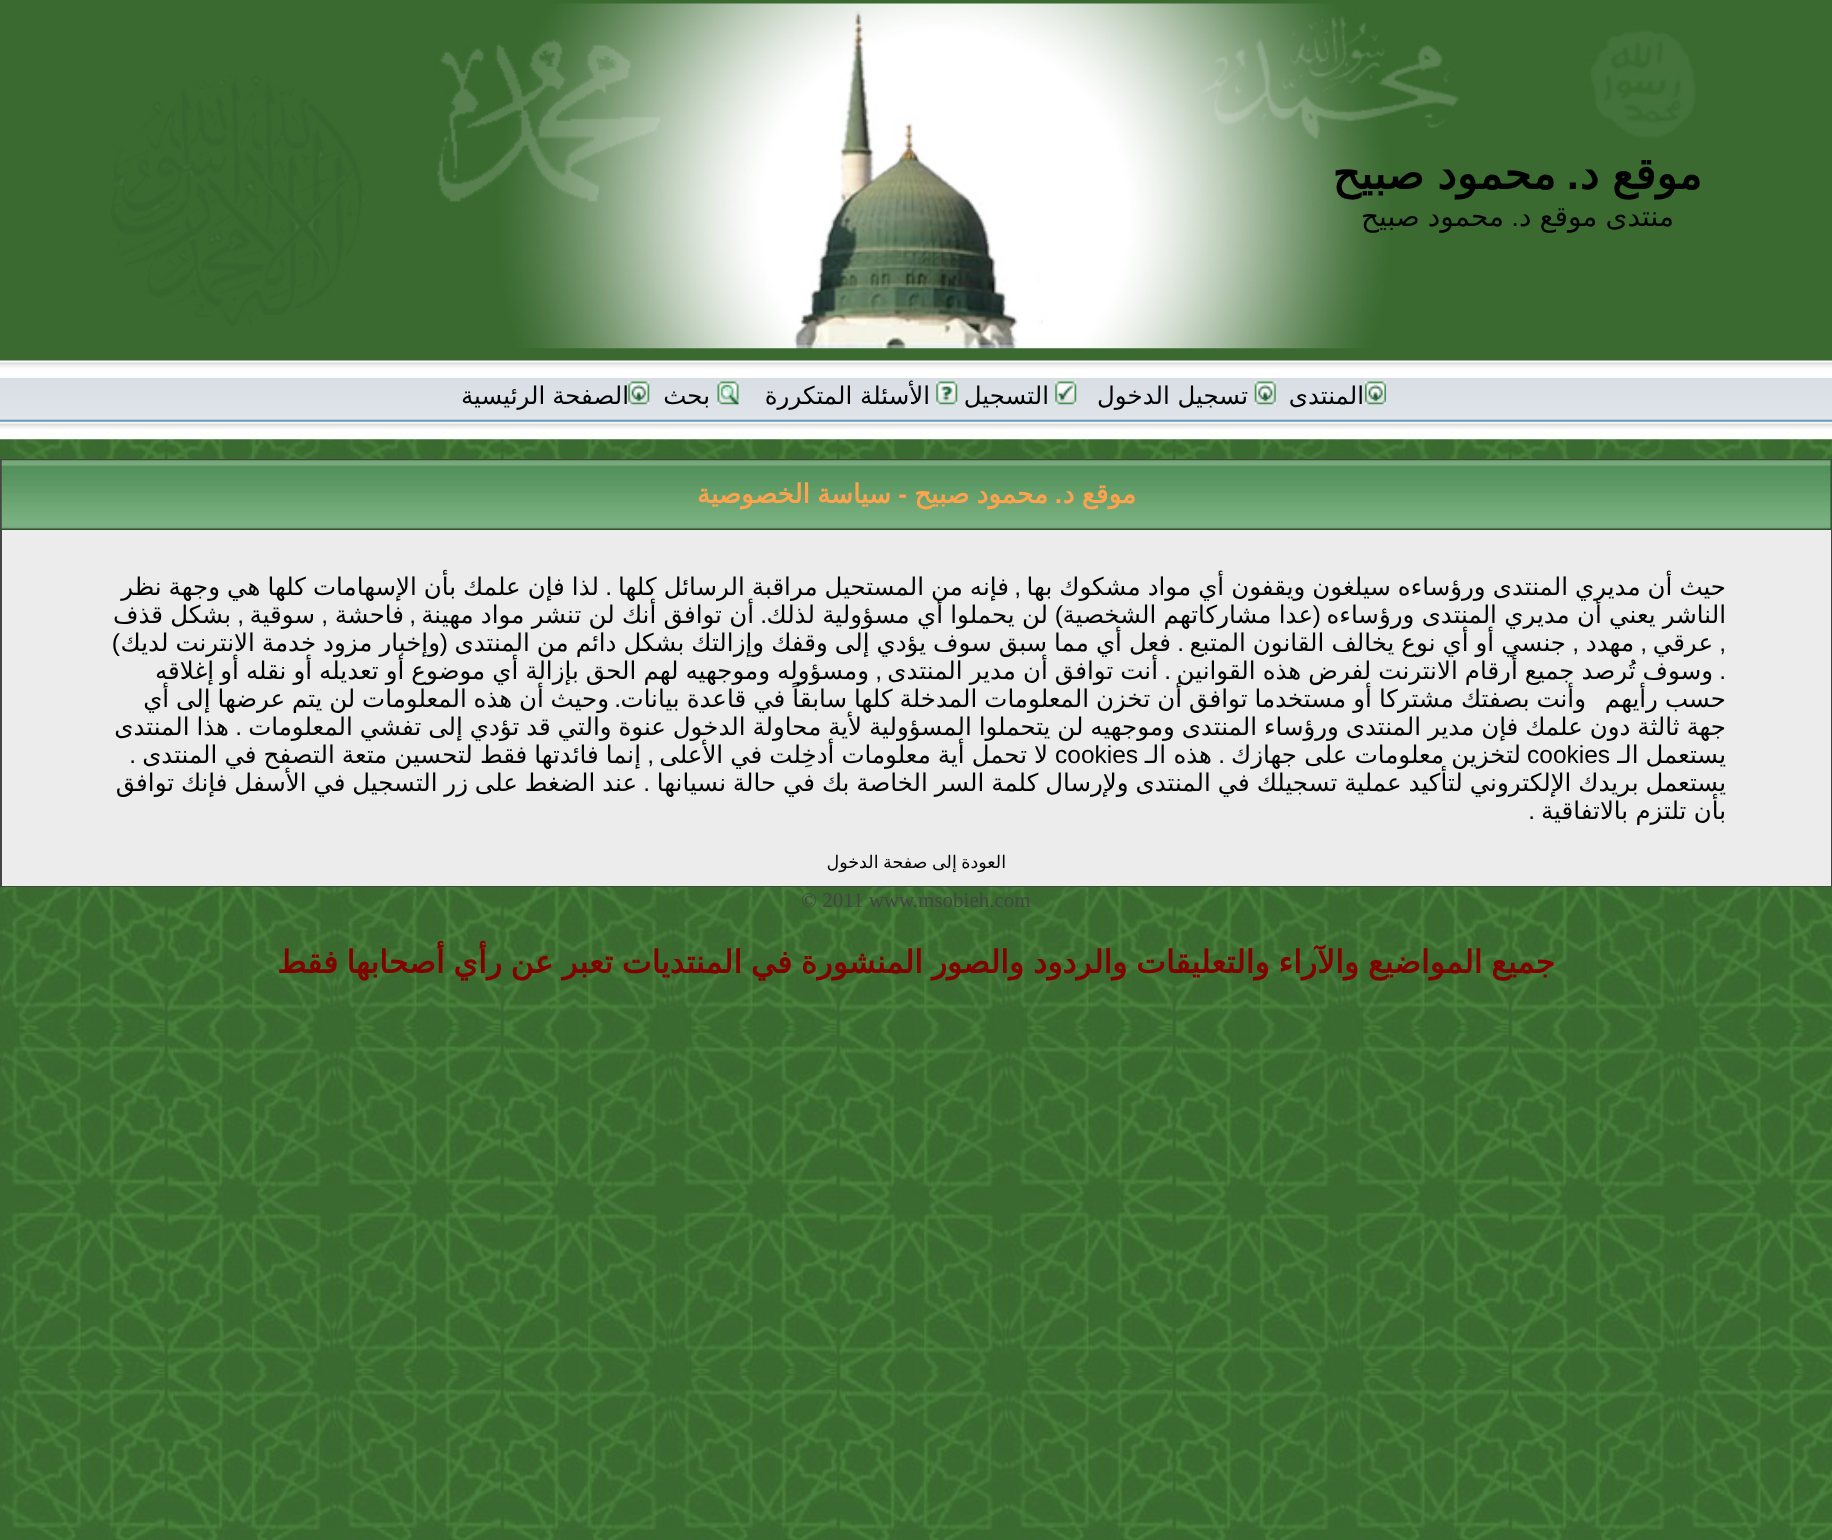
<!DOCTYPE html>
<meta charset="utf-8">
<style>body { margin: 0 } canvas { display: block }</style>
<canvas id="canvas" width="1832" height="1540"></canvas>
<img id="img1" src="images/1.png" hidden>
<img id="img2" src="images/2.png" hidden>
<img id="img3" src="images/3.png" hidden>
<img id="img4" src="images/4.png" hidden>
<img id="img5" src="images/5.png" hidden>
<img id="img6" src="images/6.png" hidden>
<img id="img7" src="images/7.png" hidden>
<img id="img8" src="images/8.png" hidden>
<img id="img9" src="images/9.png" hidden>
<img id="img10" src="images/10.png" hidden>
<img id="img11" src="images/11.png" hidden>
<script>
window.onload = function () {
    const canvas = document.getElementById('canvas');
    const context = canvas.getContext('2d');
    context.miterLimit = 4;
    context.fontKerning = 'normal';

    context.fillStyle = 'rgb(255, 255, 255)';
    context.fillRect(0, 0, 1832, 1540);
    context.drawImage(document.getElementById('img1'), 0, 439, 1832, 1101);
    context.fillStyle = 'rgb(58, 106, 48)';
    context.fillRect(0, 0, 1832, 360);
    context.drawImage(document.getElementById('img2'), 0, 360, 1832, 18);
    context.drawImage(document.getElementById('img3'), 111, 3, 1585, 346);
    context.drawImage(document.getElementById('img4'), 0, 378, 1832, 62);
    context.drawImage(document.getElementById('img5'), 1365, 381, 21, 24);
    context.drawImage(document.getElementById('img6'), 1254, 381, 22, 24);
    context.drawImage(document.getElementById('img7'), 1055, 381, 22, 24);
    context.drawImage(document.getElementById('img8'), 936, 381, 22, 24);
    context.drawImage(document.getElementById('img9'), 717, 381, 22, 24);
    context.drawImage(document.getElementById('img10'), 628, 381, 22, 24);
    context.fillStyle = 'rgb(68, 68, 68)';
    context.fillRect(0, 459, 1832, 428);
    context.fillStyle = 'rgb(0, 102, 0)';
    context.fillRect(2, 460, 1829, 69);
    context.drawImage(document.getElementById('img11'), 1, 460, 1830, 69);
    context.fillStyle = 'rgb(236, 236, 236)';
    context.fillRect(2, 530, 1829, 356);
    context.wordSpacing = '-1px';
    context.direction = 'rtl';
    context.font = 'bold 43.75px DejaVu Sans';
    context.fillStyle = 'rgb(0, 0, 0)';
    context.fillText('موقع د', 1702, 189);
    context.wordSpacing = '0px';
    context.font = 'bold 43.75px Liberation Sans';
    context.fillText('.', 1579, 189);
    context.wordSpacing = '-1px';
    context.font = 'bold 43.75px DejaVu Sans';
    context.fillText('محمود صبيح', 1556, 189);
    context.wordSpacing = '-0.75px';
    context.font = '28px DejaVu Sans';
    context.fillText('منتدى موقع د', 1674, 226);
    context.wordSpacing = '0px';
    context.font = '28px Liberation Sans';
    context.fillText('.', 1519, 226);
    context.wordSpacing = '-0.75px';
    context.font = '28px DejaVu Sans';
    context.fillText('محمود صبيح', 1504, 226);
    context.wordSpacing = '0px';
    context.font = '24.5px DejaVu Sans';
    context.fillText('المنتدى', 1364, 404);
    context.fillText('تسجيل الدخول', 1248, 404);
    context.fillText('التسجيل', 1049, 404);
    context.fillText('الأسئلة المتكررة', 930, 404);
    context.fillText('بحث', 710, 404);
    context.wordSpacing = '-1px';
    context.fillText('الصفحة الرئيسية', 629, 404);
    context.font = 'bold 26.25px DejaVu Sans';
    context.fillStyle = 'rgb(255, 163, 79)';
    context.fillText('موقع د', 1136, 503);
    context.fillText('محمود صبيح', 1048, 503);
    context.wordSpacing = '0px';
    context.font = 'bold 26.25px Liberation Sans';
    context.fillText('-', 907, 503);
    context.wordSpacing = '-1px';
    context.font = 'bold 26.25px DejaVu Sans';
    context.fillText('سياسة الخصوصية', 891, 503);
    context.wordSpacing = '0px';
    context.font = 'bold 26.25px Liberation Sans';
    context.fillText('.', 1062, 503);
    context.wordSpacing = '-0.75px';
    context.font = '24.5px DejaVu Sans';
    context.fillStyle = 'rgb(0, 0, 0)';
    context.fillText('حيث أن مديري المنتدى ورؤساءه سيلغون ويقفون أي مواد مشكوك بها', 1726, 595);
    context.wordSpacing = '0px';
    context.font = '24.5px Liberation Sans';
    context.fillText(',', 1021, 595);
    context.wordSpacing = '-0.75px';
    context.font = '24.5px DejaVu Sans';
    context.fillText('فإنه من المستحيل مراقبة الرسائل كلها', 1009, 595);
    context.wordSpacing = '0px';
    context.font = '24.5px Liberation Sans';
    context.fillText('.', 612, 595);
    context.wordSpacing = '-0.75px';
    context.font = '24.5px DejaVu Sans';
    context.fillText('لذا فإن علمك بأن الإسهامات كلها هي وجهة نظر', 599, 595);
    context.wordSpacing = '-0.5px';
    context.fillText('الناشر يعني أن مديري المنتدى ورؤساءه', 1726, 623);
    context.wordSpacing = '0px';
    context.font = '24.5px Liberation Sans';
    context.fillText('(', 1321, 623);
    context.wordSpacing = '-0.5px';
    context.font = '24.5px DejaVu Sans';
    context.fillText('عدا مشاركاتهم الشخصية', 1313, 623);
    context.wordSpacing = '0px';
    context.font = '24.5px Liberation Sans';
    context.fillText(')', 1063, 623);
    context.wordSpacing = '-0.5px';
    context.font = '24.5px DejaVu Sans';
    context.fillText('لن يحملوا أي مسؤولية لذلك', 1048, 623);
    context.wordSpacing = '0px';
    context.font = '24.5px Liberation Sans';
    context.fillText('.', 767, 623);
    context.wordSpacing = '-0.5px';
    context.font = '24.5px DejaVu Sans';
    context.fillText('أن توافق أنك لن تنشر مواد مهينة', 754, 623);
    context.wordSpacing = '0px';
    context.font = '24.5px Liberation Sans';
    context.fillText(',', 416, 623);
    context.font = '24.5px DejaVu Sans';
    context.fillText('فاحشة', 404, 623);
    context.font = '24.5px Liberation Sans';
    context.fillText(',', 328, 623);
    context.font = '24.5px DejaVu Sans';
    context.fillText('سوقية', 315, 623);
    context.font = '24.5px Liberation Sans';
    context.fillText(',', 244, 623);
    context.wordSpacing = '-0.5px';
    context.font = '24.5px DejaVu Sans';
    context.fillText('بشكل قذف', 231, 623);
    context.wordSpacing = '0px';
    context.font = '24.5px Liberation Sans';
    context.fillText(',', 1726, 651);
    context.font = '24.5px DejaVu Sans';
    context.fillText('عرقي', 1713, 651);
    context.font = '24.5px Liberation Sans';
    context.fillText(',', 1647, 651);
    context.font = '24.5px DejaVu Sans';
    context.fillText('مهدد', 1634, 651);
    context.font = '24.5px Liberation Sans';
    context.fillText(',', 1579, 651);
    context.wordSpacing = '-0.75px';
    context.font = '24.5px DejaVu Sans';
    context.fillText('جنسي أو أي نوع يخالف القانون المتبع', 1566, 651);
    context.wordSpacing = '0px';
    context.font = '24.5px Liberation Sans';
    context.fillText('.', 1184, 651);
    context.wordSpacing = '-0.75px';
    context.font = '24.5px DejaVu Sans';
    context.fillText('فعل أي مما سبق سوف يؤدي إلى وقفك وإزالتك بشكل دائم من المنتدى', 1171, 651);
    context.wordSpacing = '0px';
    context.font = '24.5px Liberation Sans';
    context.fillText('(', 448, 651);
    context.wordSpacing = '-0.75px';
    context.font = '24.5px DejaVu Sans';
    context.fillText('وإخبار مزود خدمة الانترنت لديك', 440, 651);
    context.wordSpacing = '0px';
    context.font = '24.5px Liberation Sans';
    context.fillText(')', 120, 651);
    context.fillText('.', 1726, 679);
    context.wordSpacing = '-0.75px';
    context.font = '24.5px DejaVu Sans';
    context.fillText('وسوف تُرصد جميع أرقام الانترنت لفرض هذه القوانين', 1713, 679);
    context.wordSpacing = '0px';
    context.font = '24.5px Liberation Sans';
    context.fillText('.', 1171, 679);
    context.wordSpacing = '-0.75px';
    context.font = '24.5px DejaVu Sans';
    context.fillText('أنت توافق أن مدير المنتدى', 1158, 679);
    context.wordSpacing = '0px';
    context.font = '24.5px Liberation Sans';
    context.fillText(',', 882, 679);
    context.wordSpacing = '-0.75px';
    context.font = '24.5px DejaVu Sans';
    context.fillText('ومسؤوله وموجهيه لهم الحق بإزالة أي موضوع أو تعديله أو نقله أو', 869, 679);
    context.wordSpacing = '0px';
    context.fillText('إغلاقه', 214, 679);
    context.wordSpacing = '-0.75px';
    context.fillText('حسب رأيهم', 1726, 707);
    context.fillText('وأنت بصفتك مشتركا أو مستخدما توافق أن تخزن المعلومات المدخلة كلها سابقاً في قاعدة بيانات', 1586, 707);
    context.wordSpacing = '0px';
    context.font = '24.5px Liberation Sans';
    context.fillText('.', 621, 707);
    context.wordSpacing = '-1px';
    context.font = '24.5px DejaVu Sans';
    context.fillText('وحيث أن هذه المعلومات لن يتم عرضها إلى أي', 609, 707);
    context.wordSpacing = '-0.9px';
    context.fillText('جهة ثالثة دون علمك فإن مدير المنتدى ورؤساء المنتدى وموجهيه لن يتحملوا المسؤولية لأية محاولة الدخول عنوة والتي قد تؤدي إلى تفشي المعلومات', 1726, 735);
    context.wordSpacing = '0px';
    context.font = '24.5px Liberation Sans';
    context.fillText('.', 242, 735);
    context.wordSpacing = '-0.9px';
    context.font = '24.5px DejaVu Sans';
    context.fillText('هذا المنتدى', 229, 735);
    context.wordSpacing = '-1px';
    context.fillText('يستعمل الـ', 1726, 763);
    context.wordSpacing = '0px';
    context.direction = 'ltr';
    context.font = '24.5px Liberation Sans';
    context.fillText('cookies', 1527, 763);
    context.wordSpacing = '-0.5px';
    context.direction = 'rtl';
    context.font = '24.5px DejaVu Sans';
    context.fillText('لتخزين معلومات على جهازك', 1521, 763);
    context.wordSpacing = '0px';
    context.font = '24.5px Liberation Sans';
    context.fillText('.', 1225, 763);
    context.wordSpacing = '-0.5px';
    context.font = '24.5px DejaVu Sans';
    context.fillText('هذه الـ', 1212, 763);
    context.wordSpacing = '0px';
    context.direction = 'ltr';
    context.font = '24.5px Liberation Sans';
    context.fillText('cookies', 1055, 763);
    context.wordSpacing = '-0.75px';
    context.direction = 'rtl';
    context.font = '24.5px DejaVu Sans';
    context.fillText('لا تحمل أية معلومات أدخِلت في الأعلى', 1048, 763);
    context.wordSpacing = '0px';
    context.font = '24.5px Liberation Sans';
    context.fillText(',', 654, 763);
    context.wordSpacing = '-0.75px';
    context.font = '24.5px DejaVu Sans';
    context.fillText('إنما فائدتها فقط لتحسين متعة التصفح في المنتدى', 641, 763);
    context.wordSpacing = '0px';
    context.font = '24.5px Liberation Sans';
    context.fillText('.', 136, 763);
    context.wordSpacing = '-0.9px';
    context.font = '24.5px DejaVu Sans';
    context.fillText('يستعمل بريدك الإلكتروني لتأكيد عملية تسجيلك في المنتدى ولإرسال كلمة السر الخاصة بك في حالة نسيانها', 1726, 791);
    context.wordSpacing = '0px';
    context.font = '24.5px Liberation Sans';
    context.fillText('.', 650, 791);
    context.wordSpacing = '-1px';
    context.font = '24.5px DejaVu Sans';
    context.fillText('عند الضغط على زر التسجيل في الأسفل فإنك توافق', 637, 791);
    context.wordSpacing = '-0.5px';
    context.fillText('بأن تلتزم بالاتفاقية', 1726, 819);
    context.wordSpacing = '0px';
    context.font = '24.5px Liberation Sans';
    context.fillText('.', 1535, 819);
    context.wordSpacing = '-1px';
    context.font = '17.5px DejaVu Sans';
    context.fillText('العودة إلى صفحة الدخول', 1006, 868);
    context.wordSpacing = '0px';
    context.direction = 'ltr';
    context.font = '21px Liberation Serif';
    context.fillStyle = 'rgb(68, 68, 68)';
    context.fillText('© 2011 www.msobieh.com', 801, 907);
    context.wordSpacing = '-1.25px';
    context.direction = 'rtl';
    context.font = 'bold 31.5px DejaVu Sans';
    context.fillStyle = 'rgb(128, 0, 0)';
    context.fillText('جميع المواضيع والآراء والتعليقات والردود', 1555, 973);
    context.fillText('والصور المنشورة في المنتديات تعبر عن رأي أصحابها', 1024, 973);
    context.wordSpacing = '0px';
    context.fillText('فقط', 338, 973);
};
</script>
